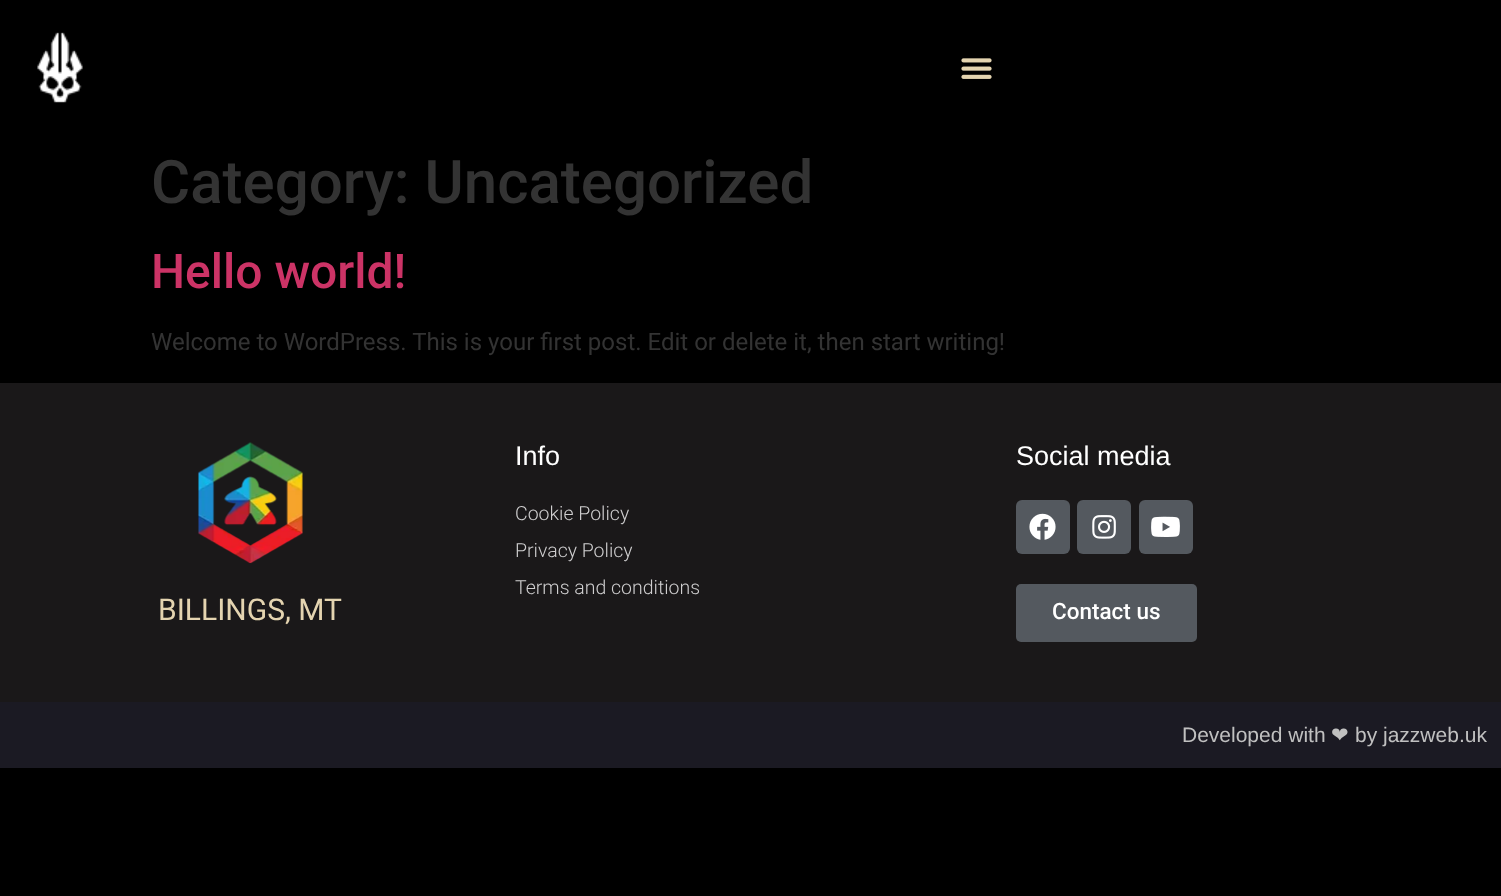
<!DOCTYPE html>
<meta charset="utf-8">
<style>body { margin: 0 } canvas { display: block }</style>
<canvas id="canvas" width="1501" height="896"></canvas>
<img id="img1" src="images/1.png" hidden>
<img id="img2" src="images/2.png" hidden>
<img id="img3" src="images/3.png" hidden>
<img id="img4" src="images/4.png" hidden>
<img id="img5" src="images/5.png" hidden>
<img id="img6" src="images/6.png" hidden>
<script>
window.onload = function () {
    const canvas = document.getElementById('canvas');
    const context = canvas.getContext('2d');
    context.miterLimit = 4;
    context.fontKerning = 'normal';

    context.fillStyle = 'rgb(0, 0, 0)';
    context.fillRect(0, 0, 1501, 896);
    context.drawImage(document.getElementById('img1'), 37, 32, 46, 71);
    context.drawImage(document.getElementById('img2'), 961, 58, 31, 21);
    context.fillStyle = 'rgb(26, 24, 25)';
    context.fillRect(0, 383, 1501, 319);
    context.drawImage(document.getElementById('img3'), 198, 442, 105, 122);
    context.fillStyle = 'rgb(84, 89, 95)';
    context.beginPath();
    context.roundRect(1016, 500, 54, 54, 6);
    context.fill();
    context.drawImage(document.getElementById('img4'), 1029, 513, 27, 27);
    context.beginPath();
    context.roundRect(1077, 500, 54, 54, 6);
    context.fill();
    context.drawImage(document.getElementById('img5'), 1092, 515, 24, 24);
    context.beginPath();
    context.roundRect(1139, 500, 54, 54, 6);
    context.fill();
    context.drawImage(document.getElementById('img6'), 1151, 516, 29, 21);
    context.beginPath();
    context.roundRect(1016, 584, 181, 58, 5);
    context.fill();
    context.fillStyle = 'rgb(27, 26, 35)';
    context.fillRect(0, 702, 1501, 66);
    context.font = '500 60px Roboto';
    context.fillStyle = 'rgb(51, 51, 51)';
    context.fillText('Category: Uncategorized', 151, 203);
    context.font = '500 48px Roboto';
    context.fillStyle = 'rgb(204, 51, 102)';
    context.fillText('Hello world!', 151, 288);
    context.font = '24px Roboto';
    context.fillStyle = 'rgb(51, 51, 51)';
    context.fillText('Welcome to WordPress. This is your first post. Edit or delete it, then start writing!', 151, 350);
    context.font = '30px Roboto';
    context.fillStyle = 'rgb(228, 212, 176)';
    context.fillText('BILLINGS, MT', 158, 620);
    context.font = '27px Liberation Sans';
    context.fillStyle = 'rgb(255, 255, 255)';
    context.fillText('Info', 515, 465);
    context.font = '300 19.5px Roboto';
    context.fillStyle = 'rgb(207, 206, 207)';
    context.fillText('Cookie Policy', 515, 520);
    context.fillText('Privacy Policy', 515, 557);
    context.fillText('Terms and conditions', 515, 594);
    context.font = '27px Liberation Sans';
    context.fillStyle = 'rgb(255, 255, 255)';
    context.fillText('Social media', 1016, 465);
    context.font = '500 22.5px Roboto';
    context.fillText('Contact us', 1052, 619);
    context.font = '21px Liberation Sans';
    context.fillStyle = 'rgb(192, 192, 192)';
    context.fillText('Developed with', 1182, 742);
    context.font = '21px DejaVu Sans';
    context.fillText('❤', 1331, 742);
    context.font = '21px Liberation Sans';
    context.fillText('by jazzweb.uk', 1355, 742);
};
</script>
